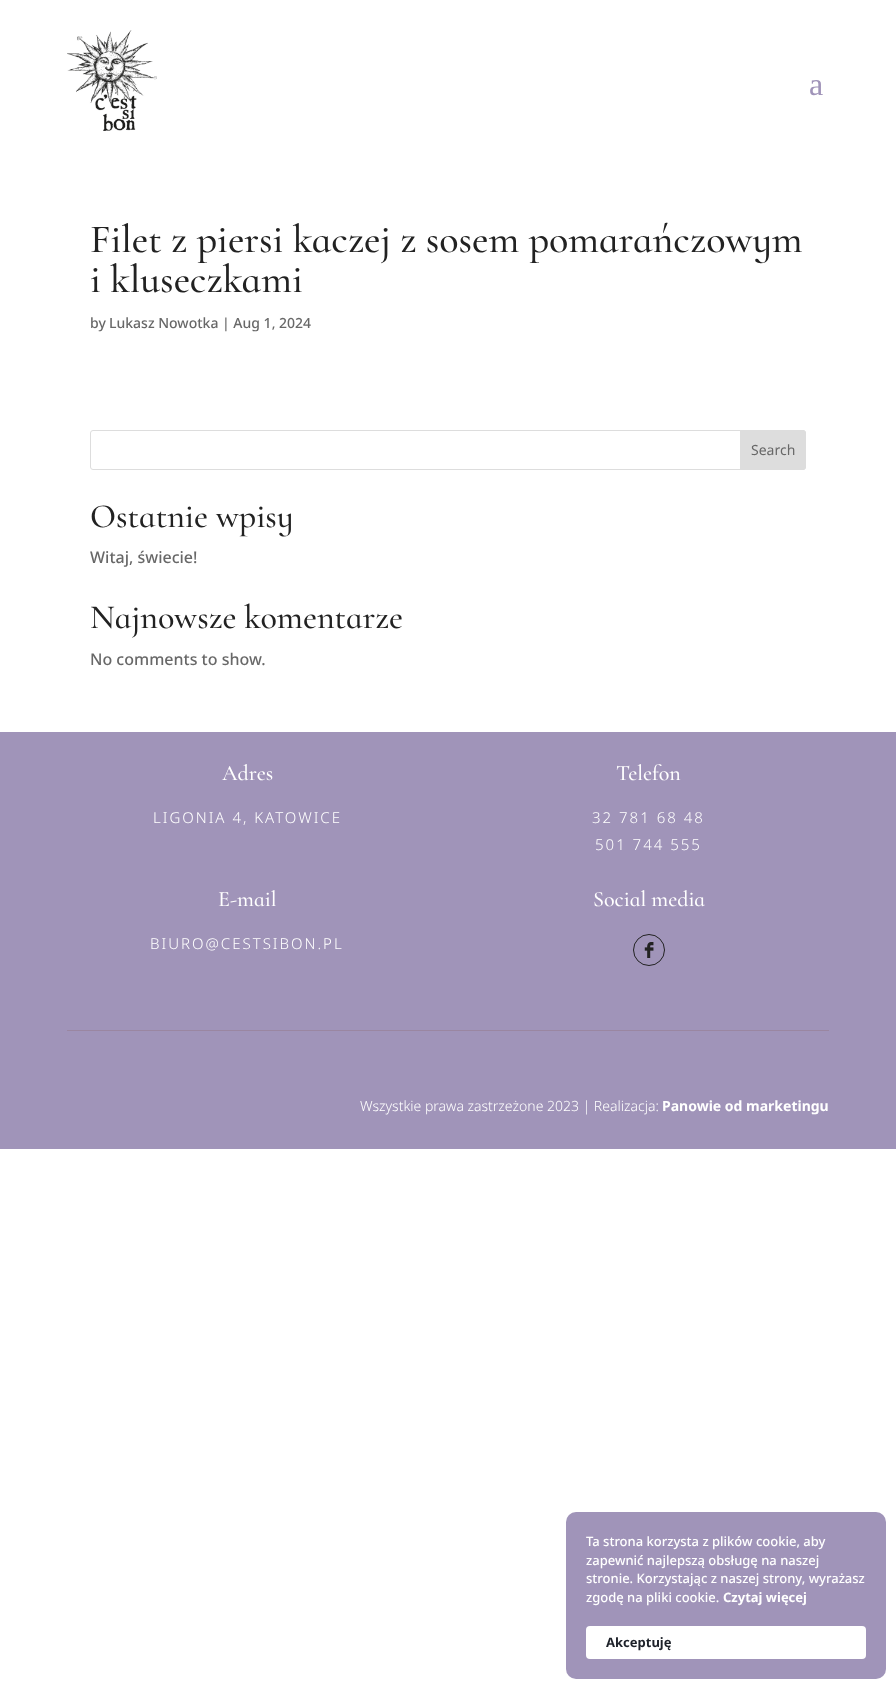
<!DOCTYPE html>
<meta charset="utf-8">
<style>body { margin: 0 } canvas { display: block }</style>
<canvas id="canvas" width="896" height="1689"></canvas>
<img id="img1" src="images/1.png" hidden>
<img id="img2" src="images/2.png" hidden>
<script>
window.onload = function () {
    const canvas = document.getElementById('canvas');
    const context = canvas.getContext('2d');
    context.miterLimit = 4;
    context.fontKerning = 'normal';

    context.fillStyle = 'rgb(255, 255, 255)';
    context.fillRect(0, 0, 896, 1689);
    context.drawImage(document.getElementById('img1'), 67, 30, 90, 101);
    context.beginPath();
    context.roundRect(90.5, 430.5, 715, 39, 2.5);
    context.strokeStyle = 'rgb(221, 221, 221)';
    context.stroke();
    context.fillStyle = 'rgb(221, 221, 221)';
    context.beginPath();
    context.roundRect(740.5, 430.5, 65, 39, [0, 2.5, 2.5, 0]);
    context.fill();
    context.stroke();
    context.fillStyle = 'rgb(160, 148, 185)';
    context.fillRect(0, 732, 896, 417);
    context.fillStyle = 'rgb(154, 134, 161)';
    context.fillRect(67, 1030, 762, 1);
    context.beginPath();
    context.arc(649, 950, 15.5, 0, 2 * Math.PI);
    context.strokeStyle = 'rgb(34, 34, 34)';
    context.stroke();
    context.drawImage(document.getElementById('img2'), 644, 942, 10, 16);
    context.fillStyle = 'rgb(160, 148, 185)';
    context.beginPath();
    context.roundRect(566, 1512, 320, 167, 10);
    context.fill();
    context.fillStyle = 'rgb(255, 255, 255)';
    context.beginPath();
    context.roundRect(586, 1626, 280, 33, 4);
    context.fill();
    context.font = '32px Liberation Serif';
    context.fillStyle = 'rgb(160, 148, 185)';
    context.fillText('a', 809, 95);
    context.font = '500 40px Cormorant Infant';
    context.fillStyle = 'rgb(34, 34, 34)';
    context.fillText('Filet z piersi kaczej z sosem pomarańczowym', 90, 252);
    context.fillText('i kluseczkami', 90, 292);
    context.font = '500 14px Noto Sans';
    context.fillStyle = 'rgb(104, 104, 104)';
    context.fillText('by', 90, 328);
    context.fillText('Lukasz Nowotka', 109, 328);
    context.fillText('| Aug 1, 2024', 222, 328);
    context.font = '14px Noto Sans';
    context.fillText('Search', 751, 455);
    context.font = '500 34px Cormorant Infant';
    context.fillStyle = 'rgb(34, 34, 34)';
    context.fillText('Ostatnie wpisy', 90, 527);
    context.font = '500 16px Noto Sans';
    context.fillStyle = 'rgb(104, 104, 104)';
    context.fillText('Witaj, świecie!', 90, 563);
    context.font = '500 34px Cormorant Infant';
    context.fillStyle = 'rgb(34, 34, 34)';
    context.fillText('Najnowsze komentarze', 90, 628);
    context.font = '500 16px Noto Sans';
    context.fillStyle = 'rgb(104, 104, 104)';
    context.fillText('No comments to show.', 90, 665);
    context.font = '500 22px Cormorant Infant';
    context.fillStyle = 'rgb(255, 255, 255)';
    context.fillText('Adres', 222, 780);
    context.letterSpacing = '2px';
    context.font = '300 15px Noto Sans';
    context.fillText('LIGONIA 4, KATOWICE', 153, 823);
    context.letterSpacing = '0px';
    context.font = '500 22px Cormorant Infant';
    context.fillText('Telefon', 616, 780);
    context.letterSpacing = '2px';
    context.font = '300 15px Noto Sans';
    context.fillText('32 781 68 48', 592, 823);
    context.fillText('501 744 555', 595, 850);
    context.letterSpacing = '0px';
    context.font = '500 22px Cormorant Infant';
    context.fillText('E-mail', 218, 906);
    context.letterSpacing = '2px';
    context.font = '300 15px Noto Sans';
    context.fillText('BIURO@CESTSIBON.PL', 150, 949);
    context.letterSpacing = '0px';
    context.font = '500 22px Cormorant Infant';
    context.fillText('Social media', 593, 906);
    context.font = '500 13px Noto Sans';
    context.fillText('Ta strona korzysta z plików cookie, aby', 586, 1546);
    context.fillText('zapewnić najlepszą obsługę na naszej', 586, 1565);
    context.fillText('stronie. Korzystając z naszej strony, wyrażasz', 586, 1583);
    context.fillText('zgodę na pliki cookie.', 586, 1602);
    context.font = 'bold 13px Noto Sans';
    context.fillText('Czytaj więcej', 723, 1602);
    context.fillStyle = 'rgb(29, 33, 41)';
    context.fillText('Akceptuję', 606, 1647);
    context.font = '300 14px Noto Sans';
    context.fillStyle = 'rgb(255, 255, 255)';
    context.fillText('Wszystkie prawa zastrzeżone 2023 | Realizacja:', 360, 1111);
    context.font = 'bold 14px Noto Sans';
    context.fillText('Panowie od marketingu', 662, 1111);
};
</script>
